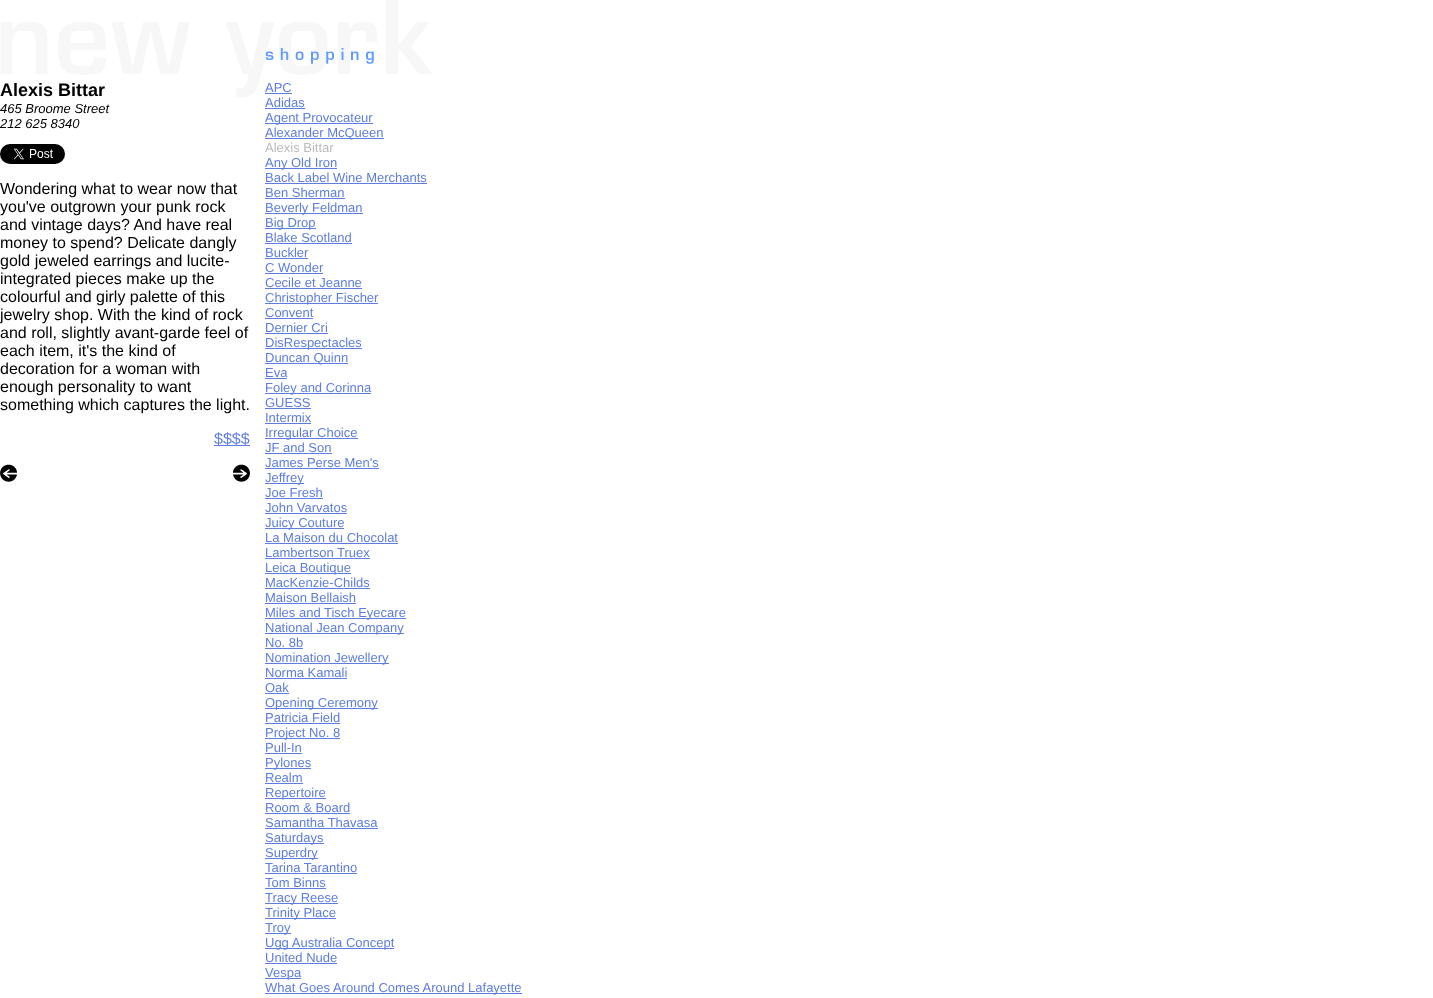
<!DOCTYPE html>
<meta charset="utf-8">
<style>body { margin: 0 } canvas { display: block }</style>
<canvas id="canvas" width="1433" height="998"></canvas>
<img id="img1" src="images/1.png" hidden>
<img id="img2" src="images/2.png" hidden>
<img id="img3" src="images/3.png" hidden>
<img id="img4" src="images/4.png" hidden>
<img id="img5" src="images/5.png" hidden>
<script>
window.onload = function () {
    const canvas = document.getElementById('canvas');
    const context = canvas.getContext('2d');
    context.miterLimit = 4;
    context.fontKerning = 'normal';

    context.fillStyle = 'rgb(255, 255, 255)';
    context.fillRect(0, 0, 1433, 998);
    context.drawImage(document.getElementById('img1'), 0, 0, 432, 98);
    context.drawImage(document.getElementById('img2'), 265, 48, 109, 16);
    context.drawImage(document.getElementById('img3'), 0, 144, 65, 20);
    context.fillStyle = 'rgb(94, 125, 223)';
    context.fillRect(214, 445, 36, 1);
    context.drawImage(document.getElementById('img4'), 0, 464, 17, 18);
    context.drawImage(document.getElementById('img5'), 233, 464, 17, 18);
    context.fillRect(265, 93, 27, 1);
    context.fillRect(265, 108, 40, 1);
    context.fillRect(265, 123, 108, 1);
    context.fillRect(265, 138, 119, 1);
    context.fillRect(265, 168, 72, 1);
    context.fillRect(265, 183, 162, 1);
    context.fillRect(265, 198, 80, 1);
    context.fillRect(265, 213, 98, 1);
    context.fillRect(265, 228, 51, 1);
    context.fillRect(265, 243, 87, 1);
    context.fillRect(265, 258, 43, 1);
    context.fillRect(265, 273, 58, 1);
    context.fillRect(265, 288, 97, 1);
    context.fillRect(265, 303, 113, 1);
    context.fillRect(265, 318, 48, 1);
    context.fillRect(265, 333, 63, 1);
    context.fillRect(265, 348, 97, 1);
    context.fillRect(265, 363, 83, 1);
    context.fillRect(265, 378, 22, 1);
    context.fillRect(265, 393, 106, 1);
    context.fillRect(265, 408, 46, 1);
    context.fillRect(265, 423, 46, 1);
    context.fillRect(265, 438, 93, 1);
    context.fillRect(265, 453, 67, 1);
    context.fillRect(265, 468, 114, 1);
    context.fillRect(265, 483, 39, 1);
    context.fillRect(265, 498, 58, 1);
    context.fillRect(265, 513, 82, 1);
    context.fillRect(265, 528, 79, 1);
    context.fillRect(265, 543, 133, 1);
    context.fillRect(265, 558, 105, 1);
    context.fillRect(265, 573, 86, 1);
    context.fillRect(265, 588, 105, 1);
    context.fillRect(265, 603, 91, 1);
    context.fillRect(265, 618, 141, 1);
    context.fillRect(265, 633, 139, 1);
    context.fillRect(265, 648, 38, 1);
    context.fillRect(265, 663, 124, 1);
    context.fillRect(265, 678, 82, 1);
    context.fillRect(265, 693, 24, 1);
    context.fillRect(265, 708, 113, 1);
    context.fillRect(265, 723, 75, 1);
    context.fillRect(265, 738, 75, 1);
    context.fillRect(265, 753, 37, 1);
    context.fillRect(265, 768, 46, 1);
    context.fillRect(265, 783, 38, 1);
    context.fillRect(265, 798, 61, 1);
    context.fillRect(265, 813, 85, 1);
    context.fillRect(265, 828, 113, 1);
    context.fillRect(265, 843, 59, 1);
    context.fillRect(265, 858, 53, 1);
    context.fillRect(265, 873, 92, 1);
    context.fillRect(265, 888, 61, 1);
    context.fillRect(265, 903, 73, 1);
    context.fillRect(265, 918, 71, 1);
    context.fillRect(265, 933, 26, 1);
    context.fillRect(265, 948, 129, 1);
    context.fillRect(265, 963, 72, 1);
    context.fillRect(265, 978, 36, 1);
    context.fillRect(265, 993, 257, 1);
    context.font = 'bold 18px Liberation Sans';
    context.fillStyle = 'rgb(0, 0, 0)';
    context.fillText('Alexis Bittar', 0, 96);
    context.font = 'italic 13px Liberation Sans';
    context.fillText('465 Broome Street', 0, 113);
    context.fillText('212 625 8340', 0, 128);
    context.font = '16px Liberation Sans';
    context.fillText('Wondering what to wear now that', 0, 194);
    context.fillText('you\'ve outgrown your punk rock', 0, 212);
    context.fillText('and vintage days? And have real', 0, 230);
    context.fillText('money to spend? Delicate dangly', 0, 248);
    context.fillText('gold jeweled earrings and lucite-', 0, 266);
    context.fillText('integrated pieces make up the', 0, 284);
    context.fillText('colourful and girly palette of this', 0, 302);
    context.fillText('jewelry shop. With the kind of rock', 0, 320);
    context.fillText('and roll, slightly avant-garde feel of', 0, 338);
    context.fillText('each item, it\'s the kind of', 0, 356);
    context.fillText('decoration for a woman with', 0, 374);
    context.fillText('enough personality to want', 0, 392);
    context.fillText('something which captures the light.', 0, 410);
    context.fillStyle = 'rgb(94, 125, 223)';
    context.fillText('$$$$', 214, 444);
    context.font = '13px Liberation Sans';
    context.fillText('APC', 265, 92);
    context.fillText('Adidas', 265, 107);
    context.fillText('Agent Provocateur', 265, 122);
    context.fillText('Alexander McQueen', 265, 137);
    context.fillStyle = 'rgb(187, 187, 187)';
    context.fillText('Alexis Bittar', 265, 152);
    context.fillStyle = 'rgb(94, 125, 223)';
    context.fillText('Any Old Iron', 265, 167);
    context.fillText('Back Label Wine Merchants', 265, 182);
    context.fillText('Ben Sherman', 265, 197);
    context.fillText('Beverly Feldman', 265, 212);
    context.fillText('Big Drop', 265, 227);
    context.fillText('Blake Scotland', 265, 242);
    context.fillText('Buckler', 265, 257);
    context.fillText('C Wonder', 265, 272);
    context.fillText('Cecile et Jeanne', 265, 287);
    context.fillText('Christopher Fischer', 265, 302);
    context.fillText('Convent', 265, 317);
    context.fillText('Dernier Cri', 265, 332);
    context.fillText('DisRespectacles', 265, 347);
    context.fillText('Duncan Quinn', 265, 362);
    context.fillText('Eva', 265, 377);
    context.fillText('Foley and Corinna', 265, 392);
    context.fillText('GUESS', 265, 407);
    context.fillText('Intermix', 265, 422);
    context.fillText('Irregular Choice', 265, 437);
    context.fillText('JF and Son', 265, 452);
    context.fillText('James Perse Men\'s', 265, 467);
    context.fillText('Jeffrey', 265, 482);
    context.fillText('Joe Fresh', 265, 497);
    context.fillText('John Varvatos', 265, 512);
    context.fillText('Juicy Couture', 265, 527);
    context.fillText('La Maison du Chocolat', 265, 542);
    context.fillText('Lambertson Truex', 265, 557);
    context.fillText('Leica Boutique', 265, 572);
    context.fillText('MacKenzie-Childs', 265, 587);
    context.fillText('Maison Bellaish', 265, 602);
    context.fillText('Miles and Tisch Eyecare', 265, 617);
    context.fillText('National Jean Company', 265, 632);
    context.fillText('No. 8b', 265, 647);
    context.fillText('Nomination Jewellery', 265, 662);
    context.fillText('Norma Kamali', 265, 677);
    context.fillText('Oak', 265, 692);
    context.fillText('Opening Ceremony', 265, 707);
    context.fillText('Patricia Field', 265, 722);
    context.fillText('Project No. 8', 265, 737);
    context.fillText('Pull-In', 265, 752);
    context.fillText('Pylones', 265, 767);
    context.fillText('Realm', 265, 782);
    context.fillText('Repertoire', 265, 797);
    context.fillText('Room & Board', 265, 812);
    context.fillText('Samantha Thavasa', 265, 827);
    context.fillText('Saturdays', 265, 842);
    context.fillText('Superdry', 265, 857);
    context.fillText('Tarina Tarantino', 265, 872);
    context.fillText('Tom Binns', 265, 887);
    context.fillText('Tracy Reese', 265, 902);
    context.fillText('Trinity Place', 265, 917);
    context.fillText('Troy', 265, 932);
    context.fillText('Ugg Australia Concept', 265, 947);
    context.fillText('United Nude', 265, 962);
    context.fillText('Vespa', 265, 977);
    context.fillText('What Goes Around Comes Around Lafayette', 265, 992);
};
</script>
